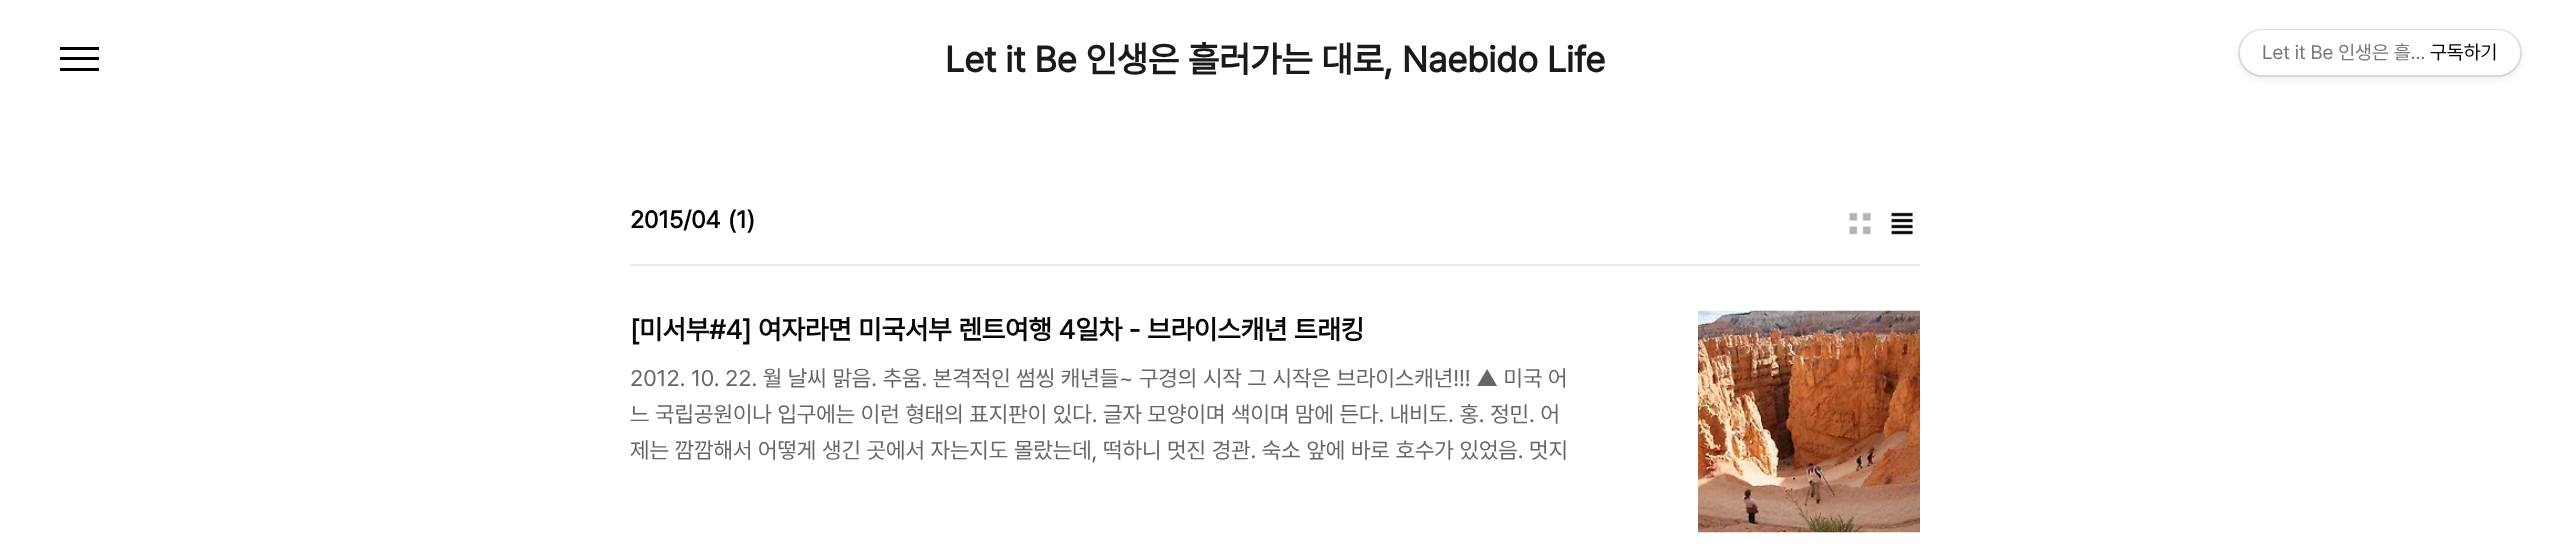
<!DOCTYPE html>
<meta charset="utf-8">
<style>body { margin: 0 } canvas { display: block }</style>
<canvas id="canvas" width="2549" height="555"></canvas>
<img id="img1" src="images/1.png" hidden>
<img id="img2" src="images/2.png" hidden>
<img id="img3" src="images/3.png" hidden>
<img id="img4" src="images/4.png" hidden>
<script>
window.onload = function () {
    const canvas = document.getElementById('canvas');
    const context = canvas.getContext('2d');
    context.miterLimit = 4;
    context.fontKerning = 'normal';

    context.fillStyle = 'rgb(255, 255, 255)';
    context.fillRect(0, 0, 2549, 555);
    context.fillStyle = 'rgb(0, 0, 0)';
    context.fillRect(60, 47, 39, 3);
    context.fillRect(60, 57, 39, 3);
    context.fillRect(60, 68, 39, 3);
    context.drawImage(document.getElementById('img1'), 2504, 73, 1, 1);
    context.fillStyle = 'rgb(235, 235, 235)';
    context.fillRect(630, 264, 1290, 2);
    context.drawImage(document.getElementById('img2'), 1849, 212, 22, 23);
    context.drawImage(document.getElementById('img3'), 1891, 212, 22, 23);
    context.drawImage(document.getElementById('img4'), 1698, 310, 222, 223);
    context.fillStyle = 'rgba(0, 0, 0, 0.1)';
    context.filter = 'blur(4px)';
    context.beginPath();
    context.roundRect(2240, 33, 280, 45, 22.5);
    context.fill();
    context.filter = 'none';
    context.beginPath();
    context.roundRect(2239, 30, 282, 46, 23);
    context.strokeStyle = 'rgba(0, 0, 0, 0.1)';
    context.lineWidth = 2;
    context.stroke();
    context.fillStyle = 'rgb(255, 255, 255)';
    context.beginPath();
    context.roundRect(2240, 30, 280, 45, 22.5);
    context.fill();
    context.font = 'bold 36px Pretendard';
    context.fillStyle = 'rgb(26, 26, 26)';
    context.fillText('Let it Be 인생은 흘러가는 대로, Naebido Life', 945, 72);
    context.font = 'bold 24px Pretendard';
    context.fillStyle = 'rgb(0, 0, 0)';
    context.fillText('2015/04', 630, 228);
    context.fillText('(1)', 728, 228);
    context.font = 'bold 27px Pretendard';
    context.fillStyle = 'rgb(8, 8, 8)';
    context.fillText('[미서부#4] 여자라면 미국서부 렌트여행 4일차 - 브라이스캐년 트래킹', 630, 339);
    context.font = '22.5px Pretendard';
    context.fillStyle = 'rgb(102, 102, 102)';
    context.fillText('2012. 10. 22. 월 날씨 맑음. 추움. 본격적인 썸씽 캐년들~ 구경의 시작 그 시작은 브라이스캐년!!! ▲ 미국 어', 630, 386);
    context.fillText('느 국립공원이나 입구에는 이런 형태의 표지판이 있다. 글자 모양이며 색이며 맘에 든다. 내비도. 홍. 정민. 어', 630, 422);
    context.fillText('제는 깜깜해서 어떻게 생긴 곳에서 자는지도 몰랐는데, 떡하니 멋진 경관. 숙소 앞에 바로 호수가 있었음. 멋지', 630, 458);
    context.font = '19.5px Pretendard';
    context.fillStyle = 'rgb(119, 119, 119)';
    context.fillText('Let it Be 인생은 흘…', 2262, 59);
    context.fillStyle = 'rgb(0, 0, 0)';
    context.fillText('구독하기', 2430, 59);
};
</script>
